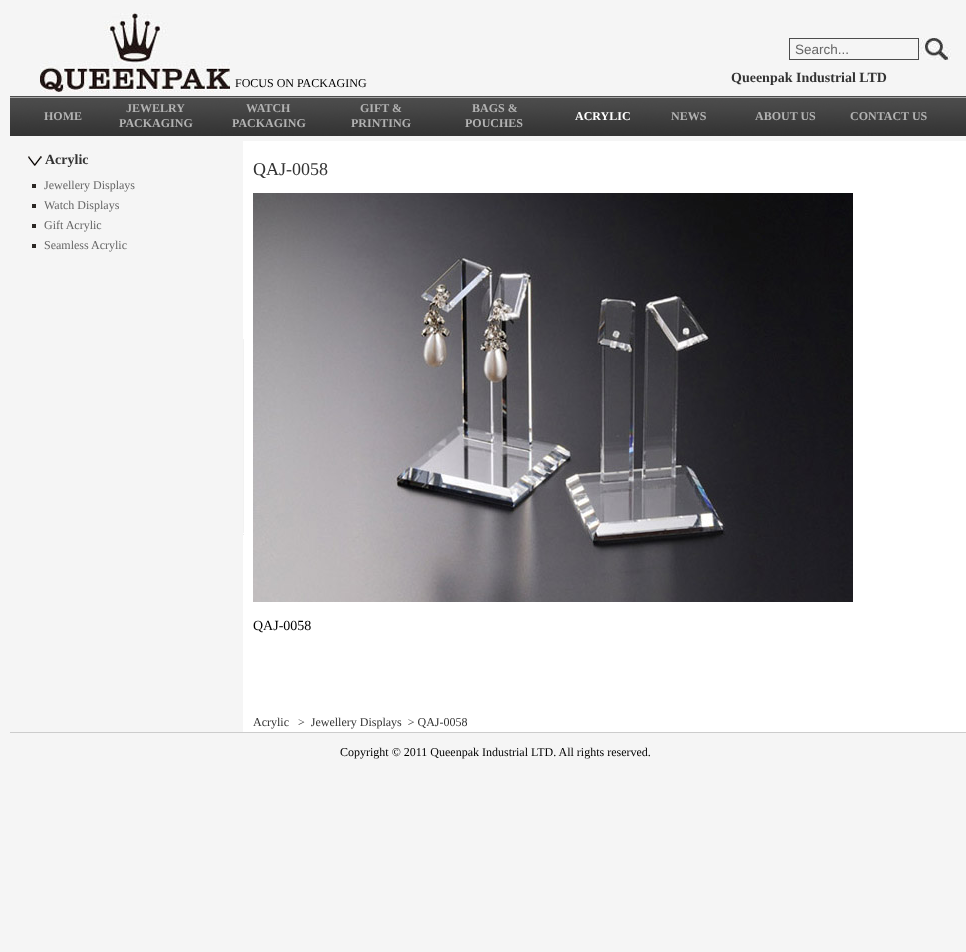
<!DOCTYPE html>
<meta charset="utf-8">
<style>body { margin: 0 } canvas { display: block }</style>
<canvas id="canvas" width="966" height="952"></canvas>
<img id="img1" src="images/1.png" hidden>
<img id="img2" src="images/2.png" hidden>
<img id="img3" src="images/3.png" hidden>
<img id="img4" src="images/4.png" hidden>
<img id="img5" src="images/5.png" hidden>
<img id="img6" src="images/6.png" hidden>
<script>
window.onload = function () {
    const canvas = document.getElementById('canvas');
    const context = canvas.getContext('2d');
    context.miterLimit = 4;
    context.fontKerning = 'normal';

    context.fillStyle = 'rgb(245, 245, 245)';
    context.fillRect(0, 0, 966, 952);
    context.fillStyle = 'rgb(255, 255, 255)';
    context.fillRect(243, 141, 723, 591);
    context.drawImage(document.getElementById('img1'), 40, 13, 190, 79);
    context.strokeStyle = 'rgb(76, 76, 76)';
    context.strokeRect(789.5, 38.5, 129, 21);
    context.drawImage(document.getElementById('img2'), 919, 38, 32, 22);
    context.drawImage(document.getElementById('img3'), 10, 96, 956, 40);
    context.drawImage(document.getElementById('img4'), 28, 156, 14, 10);
    context.fillStyle = 'rgb(44, 40, 37)';
    context.fillRect(32, 184, 4, 4);
    context.fillRect(32, 204, 4, 4);
    context.fillRect(32, 224, 4, 4);
    context.fillRect(32, 244, 4, 4);
    context.drawImage(document.getElementById('img5'), 243, 339, 1, 196);
    context.drawImage(document.getElementById('img6'), 253, 193, 600, 409);
    context.fillStyle = 'rgb(204, 204, 204)';
    context.fillRect(10, 732, 956, 1);
    context.font = '12px Liberation Serif';
    context.fillStyle = 'rgb(0, 0, 0)';
    context.fillText('FOCUS ON PACKAGING', 235, 87);
    context.font = '13.5px Liberation Sans';
    context.fillStyle = 'rgb(102, 102, 102)';
    context.fillText('Search...', 795, 54);
    context.font = 'bold 14px Liberation Serif';
    context.fillStyle = 'rgb(51, 51, 51)';
    context.fillText('Queenpak Industrial LTD', 731, 82);
    context.font = 'bold 12px Liberation Serif';
    context.fillStyle = 'rgb(178, 178, 178)';
    context.fillText('HOME', 44, 120);
    context.fillText('JEWELRY', 126, 112);
    context.fillText('PACKAGING', 119, 127);
    context.fillText('WATCH', 246, 112);
    context.fillText('PACKAGING', 232, 127);
    context.fillText('GIFT &', 360, 112);
    context.fillText('PRINTING', 351, 127);
    context.fillText('BAGS &', 472, 112);
    context.fillText('POUCHES', 465, 127);
    context.fillStyle = 'rgb(255, 255, 255)';
    context.fillText('ACRYLIC', 575, 120);
    context.fillStyle = 'rgb(178, 178, 178)';
    context.fillText('NEWS', 671, 120);
    context.fillText('ABOUT US', 755, 120);
    context.fillText('CONTACT US', 850, 120);
    context.font = 'bold 14px Liberation Serif';
    context.fillStyle = 'rgb(51, 51, 51)';
    context.fillText('Acrylic', 45, 164);
    context.font = '12px Liberation Serif';
    context.fillStyle = 'rgb(102, 102, 102)';
    context.fillText('Jewellery Displays', 44, 189);
    context.fillText('Watch Displays', 44, 209);
    context.fillText('Gift Acrylic', 44, 229);
    context.fillText('Seamless Acrylic', 44, 249);
    context.font = '18px Liberation Serif';
    context.fillStyle = 'rgb(51, 51, 51)';
    context.fillText('QAJ-0058', 253, 175);
    context.font = '14px Liberation Serif';
    context.fillStyle = 'rgb(0, 0, 0)';
    context.fillText('QAJ-0058', 253, 630);
    context.font = '12px Liberation Serif';
    context.fillStyle = 'rgb(51, 51, 51)';
    context.fillText('Acrylic', 253, 726);
    context.fillText('>  Jewellery Displays  > QAJ-0058', 298, 726);
    context.fillStyle = 'rgb(0, 0, 0)';
    context.fillText('Copyright © 2011 Queenpak Industrial LTD. All rights reserved.', 340, 756);
};
</script>
